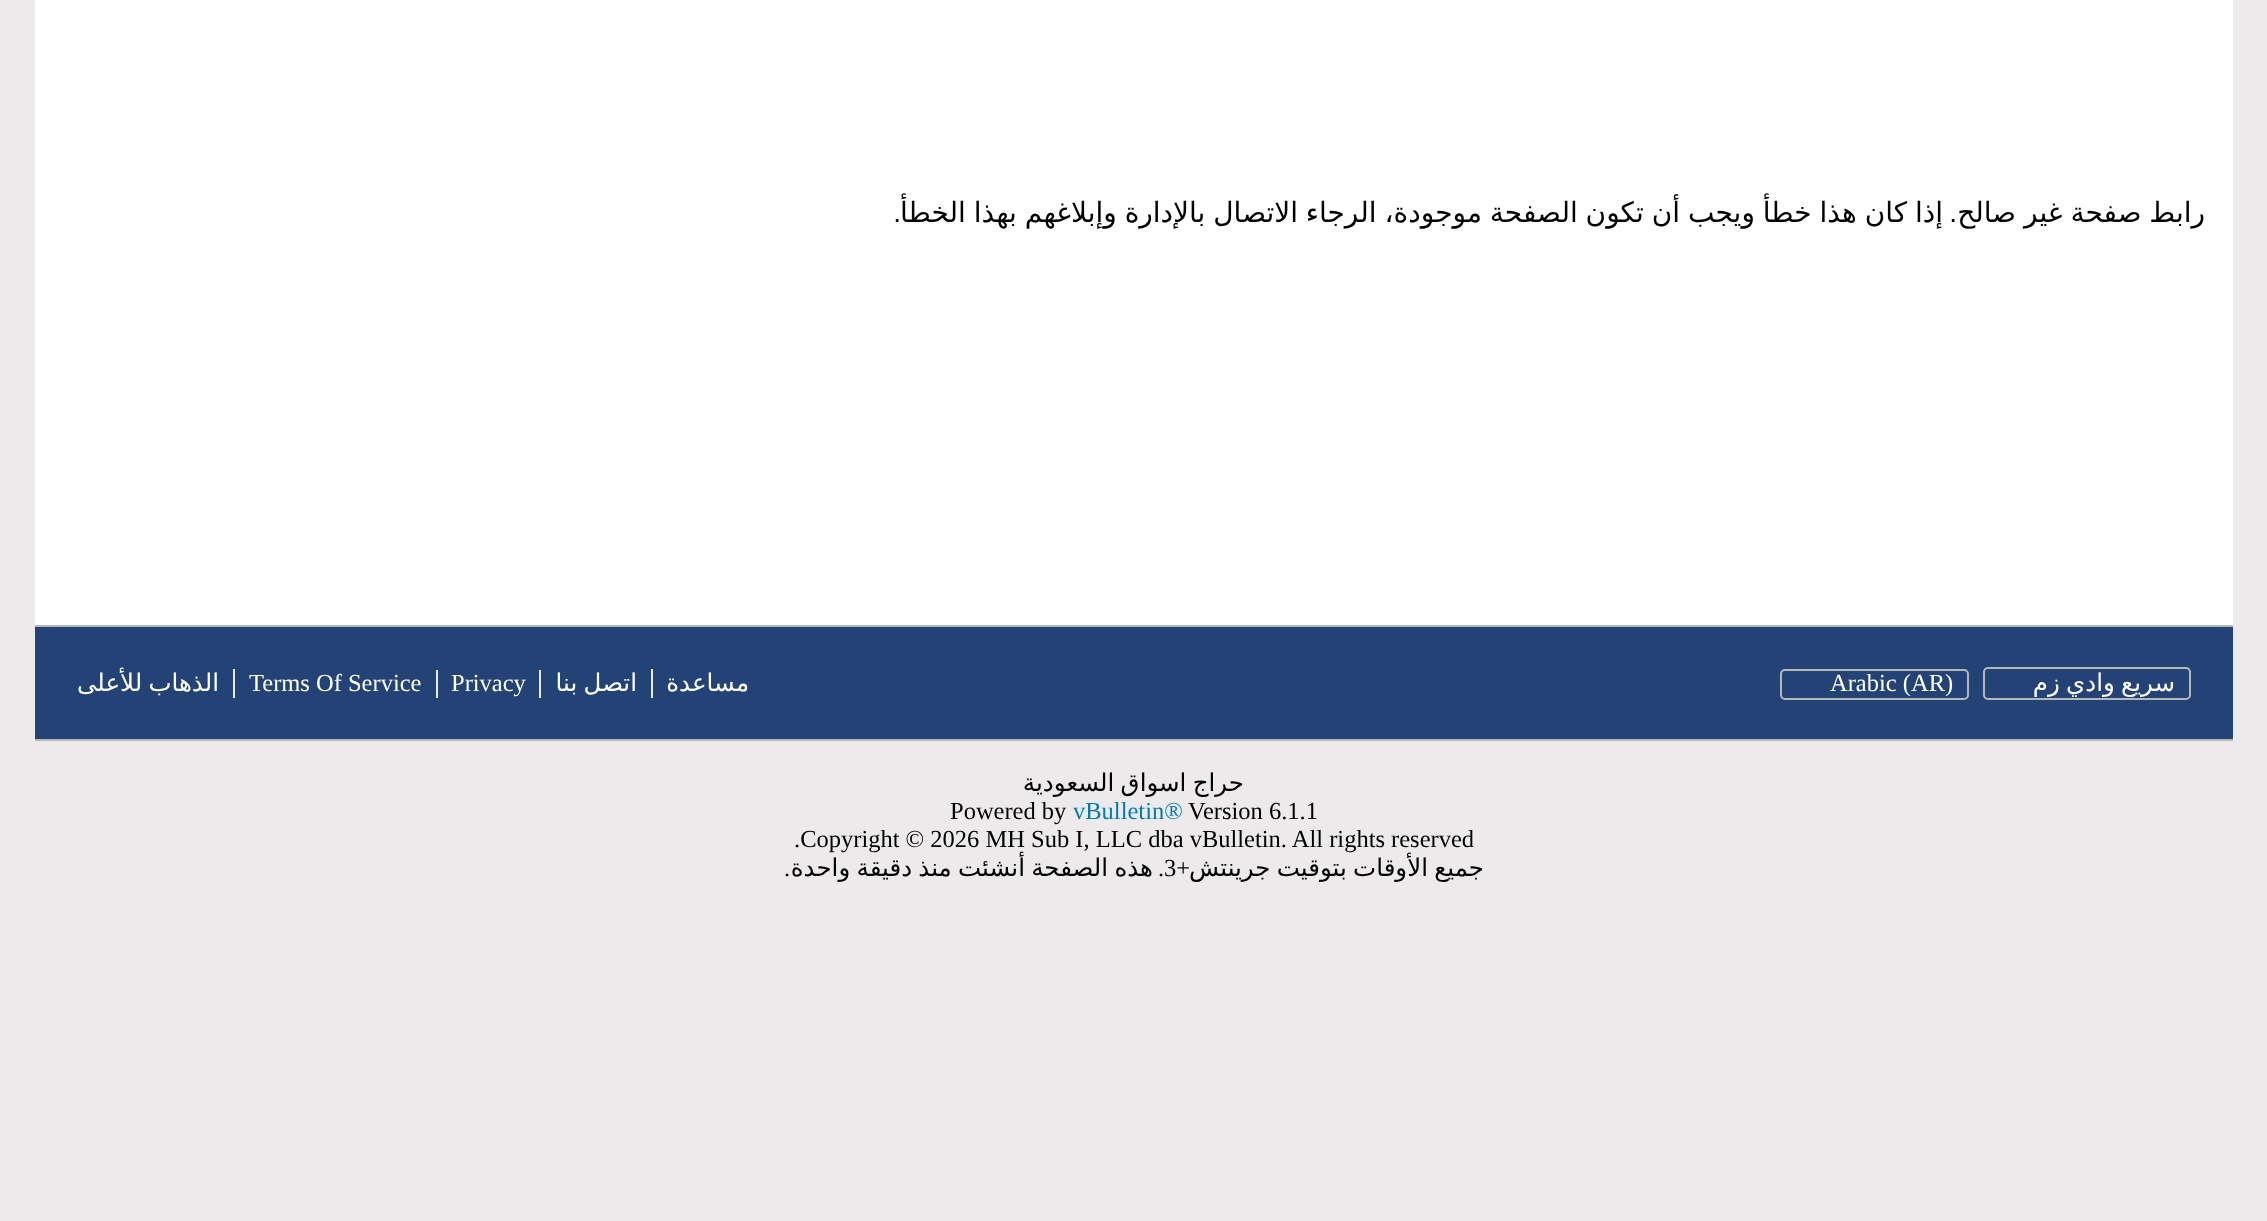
<!DOCTYPE html>
<meta charset="utf-8">
<style>body { margin: 0 } canvas { display: block }</style>
<canvas id="canvas" width="2267" height="1221"></canvas>
<script>
window.onload = function () {
    const canvas = document.getElementById('canvas');
    const context = canvas.getContext('2d');
    context.miterLimit = 4;
    context.fontKerning = 'normal';

    context.fillStyle = 'rgb(236, 234, 234)';
    context.fillRect(0, 0, 2267, 1221);
    context.fillStyle = 'rgb(255, 255, 255)';
    context.fillRect(35, 0, 2198, 625);
    context.fillStyle = 'rgb(35, 66, 118)';
    context.fillRect(35, 627, 2198, 112);
    context.fillStyle = 'rgb(183, 183, 183)';
    context.fillRect(35, 625, 2198, 2);
    context.fillRect(35, 739, 2198, 2);
    context.beginPath();
    context.roundRect(1984, 668, 206, 31, 4);
    context.strokeStyle = 'rgb(183, 183, 183)';
    context.lineWidth = 2;
    context.stroke();
    context.beginPath();
    context.roundRect(1781, 670, 187, 29, 4);
    context.stroke();
    context.fillStyle = 'rgb(236, 234, 234)';
    context.fillRect(651, 669, 2, 29);
    context.fillRect(539, 670, 2, 28);
    context.fillRect(436, 670, 2, 28);
    context.fillRect(233, 669, 2, 29);
    context.wordSpacing = '-1px';
    context.direction = 'rtl';
    context.font = '28px DejaVu Sans';
    context.fillStyle = 'rgb(0, 0, 0)';
    context.fillText('رابط صفحة غير صالح', 2205, 222);
    context.wordSpacing = '0px';
    context.font = '28px Liberation Sans';
    context.fillText('.', 1957, 222);
    context.wordSpacing = '-1px';
    context.font = '28px DejaVu Sans';
    context.fillText('إذا كان هذا خطأ ويجب أن تكون الصفحة موجودة، الرجاء الاتصال بالإدارة وإبلاغهم بهذا الخطأ', 1943, 222);
    context.wordSpacing = '0px';
    context.font = '28px Liberation Sans';
    context.fillText('.', 901, 222);
    context.wordSpacing = '-1.5px';
    context.font = '24.5px DejaVu Sans';
    context.fillStyle = 'rgb(255, 255, 255)';
    context.fillText('سريع وادي زم', 2175, 691);
    context.wordSpacing = '0px';
    context.direction = 'ltr';
    context.font = '24.5px Liberation Serif';
    context.fillText('Arabic (AR)', 1830, 691);
    context.direction = 'rtl';
    context.font = '24.5px DejaVu Sans';
    context.fillText('مساعدة', 749, 691);
    context.wordSpacing = '-1.5px';
    context.fillText('اتصل بنا', 637, 691);
    context.wordSpacing = '0px';
    context.direction = 'ltr';
    context.font = '24.5px Liberation Serif';
    context.fillText('Privacy', 451, 691);
    context.fillText('Terms Of Service', 249, 691);
    context.wordSpacing = '-1.5px';
    context.direction = 'rtl';
    context.font = '24.5px DejaVu Sans';
    context.fillText('الذهاب للأعلى', 219, 691);
    context.fillStyle = 'rgb(0, 0, 0)';
    context.fillText('حراج اسواق السعودية', 1244, 791);
    context.wordSpacing = '0px';
    context.direction = 'ltr';
    context.font = '24.5px Liberation Serif';
    context.fillText('Version 6.1.1', 1188, 819);
    context.fillStyle = 'rgb(0, 124, 176)';
    context.fillText('vBulletin®', 1073, 819);
    context.fillStyle = 'rgb(0, 0, 0)';
    context.fillText('Powered by', 950, 819);
    context.fillText('.Copyright © 2026 MH Sub I, LLC dba vBulletin. All rights reserved', 794, 847);
    context.wordSpacing = '-1.5px';
    context.direction = 'rtl';
    context.font = '24.5px DejaVu Sans';
    context.fillText('جميع الأوقات بتوقيت جرينتش', 1484, 876);
    context.wordSpacing = '0px';
    context.font = '24.5px Liberation Serif';
    context.fillText('+', 1190, 876);
    context.direction = 'ltr';
    context.fillText('3', 1164, 876);
    context.wordSpacing = '-1.5px';
    context.direction = 'rtl';
    context.font = '24.5px DejaVu Sans';
    context.fillText('هذه الصفحة أنشئت منذ دقيقة واحدة', 1153, 876);
    context.wordSpacing = '0px';
    context.font = '24.5px Liberation Serif';
    context.fillText('.', 1164, 876);
    context.fillText('.', 790, 876);
};
</script>
